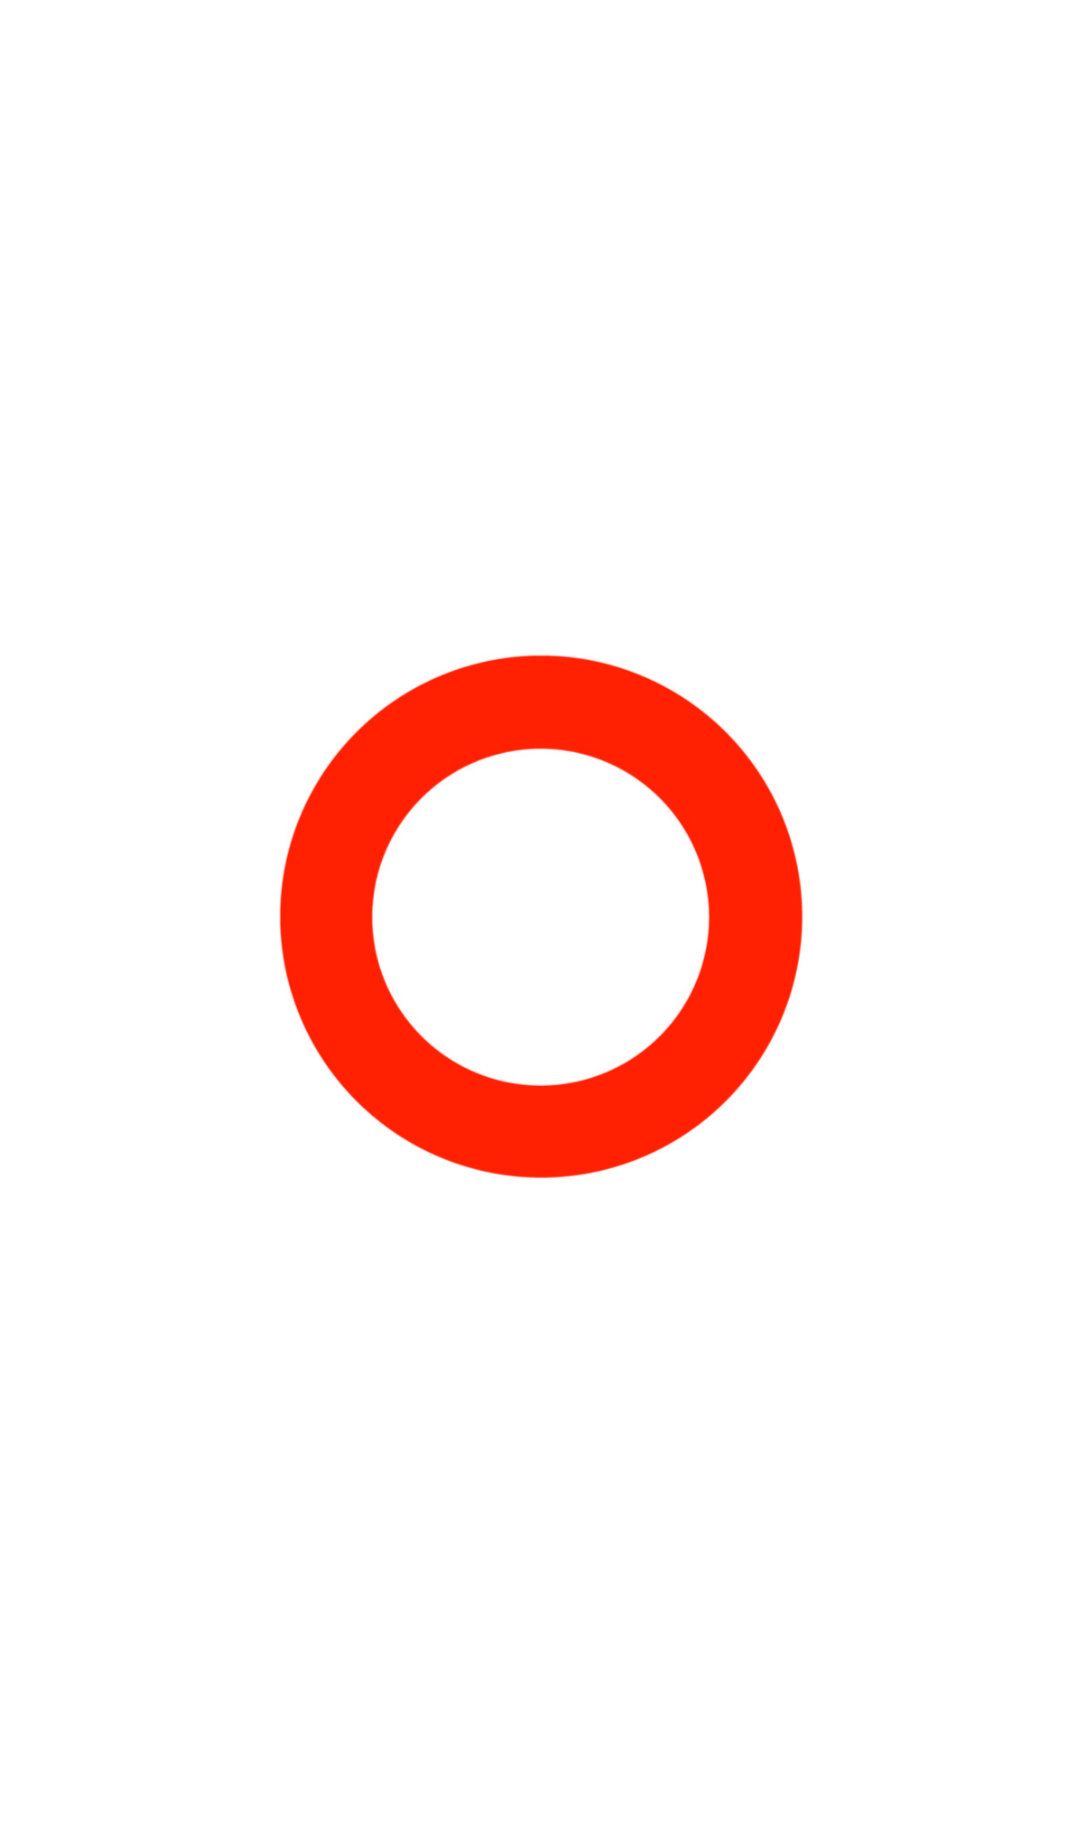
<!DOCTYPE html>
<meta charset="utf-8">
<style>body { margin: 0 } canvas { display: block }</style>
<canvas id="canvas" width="1084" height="1835"></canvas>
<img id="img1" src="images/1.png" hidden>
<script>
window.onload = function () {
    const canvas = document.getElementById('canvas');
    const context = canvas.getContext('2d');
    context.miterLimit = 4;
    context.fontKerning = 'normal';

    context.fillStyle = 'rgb(255, 255, 255)';
    context.fillRect(0, 0, 1084, 1835);
    context.drawImage(document.getElementById('img1'), 279, 654, 525, 527);
};
</script>
